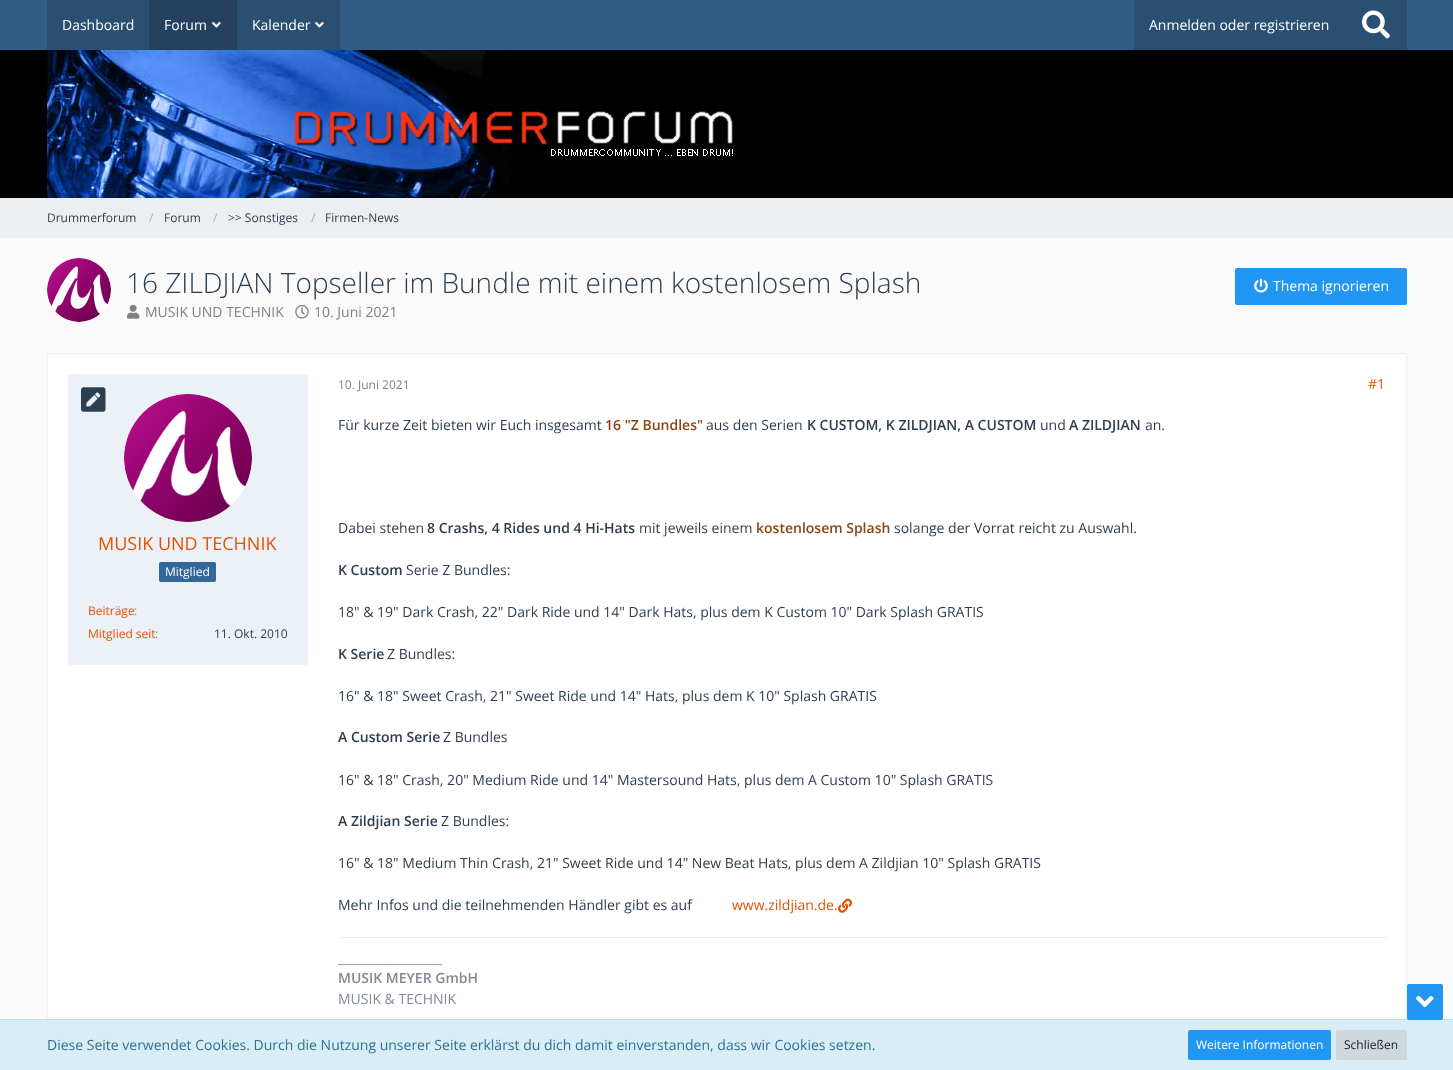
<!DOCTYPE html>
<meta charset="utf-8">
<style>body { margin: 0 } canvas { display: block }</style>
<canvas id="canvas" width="1453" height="1070"></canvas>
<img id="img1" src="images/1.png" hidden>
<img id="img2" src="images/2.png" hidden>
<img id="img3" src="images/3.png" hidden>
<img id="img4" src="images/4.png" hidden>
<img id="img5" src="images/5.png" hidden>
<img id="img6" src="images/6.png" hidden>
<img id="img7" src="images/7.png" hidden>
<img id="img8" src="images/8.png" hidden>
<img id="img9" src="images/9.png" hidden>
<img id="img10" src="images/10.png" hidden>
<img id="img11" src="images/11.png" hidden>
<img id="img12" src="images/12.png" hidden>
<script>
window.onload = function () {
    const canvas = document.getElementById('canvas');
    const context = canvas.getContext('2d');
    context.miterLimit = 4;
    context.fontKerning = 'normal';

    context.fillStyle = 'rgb(250, 250, 250)';
    context.fillRect(0, 0, 1453, 1070);
    context.fillStyle = 'rgb(0, 0, 0)';
    context.fillRect(0, 50, 1453, 148);
    context.fillStyle = 'rgb(50, 92, 132)';
    context.fillRect(0, 0, 1453, 50);
    context.fillStyle = 'rgb(43, 79, 113)';
    context.fillRect(47, 0, 102, 50);
    context.fillStyle = 'rgb(36, 66, 95)';
    context.fillRect(149, 0, 88, 50);
    context.drawImage(document.getElementById('img1'), 212, 22, 9, 6);
    context.fillStyle = 'rgb(43, 79, 113)';
    context.fillRect(237, 0, 103, 50);
    context.drawImage(document.getElementById('img2'), 315, 22, 9, 6);
    context.fillRect(1134, 0, 273, 50);
    context.drawImage(document.getElementById('img3'), 1362, 10, 28, 29);
    context.drawImage(document.getElementById('img4'), 47, 50, 686, 148);
    context.fillStyle = 'rgb(236, 239, 241)';
    context.fillRect(0, 198, 1453, 40);
    context.fillStyle = 'rgb(255, 255, 255)';
    context.beginPath();
    context.arc(79, 290, 32, 0, 2 * Math.PI);
    context.fill();
    context.drawImage(document.getElementById('img5'), 47, 258, 64, 64);
    context.drawImage(document.getElementById('img6'), 127, 304, 13, 15);
    context.drawImage(document.getElementById('img7'), 295, 305, 14, 14);
    context.fillStyle = 'rgb(33, 150, 243)';
    context.beginPath();
    context.roundRect(1235, 268, 172, 37, 2);
    context.fill();
    context.drawImage(document.getElementById('img8'), 1254, 278, 14, 15);
    context.fillStyle = 'rgb(255, 255, 255)';
    context.fillRect(48, 354, 1358, 665);
    context.strokeStyle = 'rgb(236, 241, 247)';
    context.strokeRect(47.5, 353.5, 1359, 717);
    context.fillStyle = 'rgb(236, 241, 247)';
    context.beginPath();
    context.roundRect(68, 374, 240, 291, 3);
    context.fill();
    context.drawImage(document.getElementById('img9'), 81, 387, 25, 25);
    context.fillStyle = 'rgb(255, 255, 255)';
    context.beginPath();
    context.arc(188, 458, 64, 0, 2 * Math.PI);
    context.fill();
    context.drawImage(document.getElementById('img10'), 124, 394, 128, 128);
    context.fillStyle = 'rgb(51, 102, 153)';
    context.beginPath();
    context.roundRect(159, 562, 57, 20, 2);
    context.fill();
    context.drawImage(document.getElementById('img11'), 838, 898, 14, 15);
    context.fillStyle = 'rgb(236, 236, 236)';
    context.fillRect(338, 937, 1048, 1);
    context.fillStyle = 'rgb(188, 223, 241)';
    context.fillRect(0, 1019, 1453, 1);
    context.fillStyle = 'rgb(33, 150, 243)';
    context.beginPath();
    context.roundRect(1407, 984, 36, 36, 2);
    context.fill();
    context.drawImage(document.getElementById('img12'), 1416, 995, 18, 13);
    context.fillStyle = 'rgb(217, 237, 247)';
    context.fillRect(0, 1020, 1453, 50);
    context.fillStyle = 'rgb(33, 150, 243)';
    context.beginPath();
    context.roundRect(1188, 1030, 143, 30, 2);
    context.fill();
    context.fillStyle = 'rgb(207, 216, 220)';
    context.beginPath();
    context.roundRect(1336, 1030, 71, 30, 2);
    context.fill();
    context.font = '14px Open Sans';
    context.fillStyle = 'rgb(255, 255, 255)';
    context.fillText('Dashboard', 62, 30);
    context.fillText('Forum', 164, 30);
    context.fillText('Kalender', 252, 30);
    context.fillText('Anmelden oder registrieren', 1149, 30);
    context.font = '12px Open Sans';
    context.fillStyle = 'rgb(44, 62, 80)';
    context.fillText('Drummerforum', 47, 222);
    context.fillStyle = 'rgb(170, 170, 170)';
    context.fillText('/', 149, 222);
    context.fillStyle = 'rgb(44, 62, 80)';
    context.fillText('Forum', 164, 222);
    context.fillStyle = 'rgb(170, 170, 170)';
    context.fillText('/', 213, 222);
    context.fillStyle = 'rgb(44, 62, 80)';
    context.fillText('>> Sonstiges', 228, 222);
    context.fillStyle = 'rgb(170, 170, 170)';
    context.fillText('/', 311, 222);
    context.fillStyle = 'rgb(44, 62, 80)';
    context.fillText('Firmen-News', 325, 222);
    context.font = '300 28px Open Sans';
    context.fillText('16 ZILDJIAN Topseller im Bundle mit einem kostenlosem Splash', 126, 293);
    context.font = '14px Open Sans';
    context.fillStyle = 'rgb(125, 130, 135)';
    context.fillText('MUSIK UND TECHNIK', 145, 317);
    context.fillText('10. Juni 2021', 314, 317);
    context.fillStyle = 'rgb(255, 255, 255)';
    context.fillText('Thema ignorieren', 1273, 291);
    context.font = '18px Open Sans';
    context.fillStyle = 'rgb(230, 81, 0)';
    context.fillText('MUSIK UND TECHNIK', 98, 550);
    context.font = '12px Open Sans';
    context.fillStyle = 'rgb(255, 255, 255)';
    context.fillText('Mitglied', 165, 576);
    context.fillStyle = 'rgb(230, 81, 0)';
    context.fillText('Beiträge', 88, 615);
    context.fillStyle = 'rgb(127, 140, 141)';
    context.fillText(':', 134, 615);
    context.fillStyle = 'rgb(230, 81, 0)';
    context.fillText('Mitglied seit', 88, 638);
    context.fillStyle = 'rgb(127, 140, 141)';
    context.fillText(':', 155, 638);
    context.fillStyle = 'rgb(44, 62, 80)';
    context.fillText('11. Okt. 2010', 214, 638);
    context.fillStyle = 'rgb(125, 130, 135)';
    context.fillText('10. Juni 2021', 338, 389);
    context.font = '14px Open Sans';
    context.fillStyle = 'rgb(230, 81, 0)';
    context.fillText('#1', 1368, 389);
    context.fillStyle = 'rgb(44, 62, 80)';
    context.fillText('Für kurze Zeit bieten wir Euch insgesamt', 338, 430);
    context.font = '600 14px Open Sans';
    context.fillStyle = 'rgb(139, 69, 19)';
    context.fillText('16 "Z Bundles"', 605, 430);
    context.font = '14px Open Sans';
    context.fillStyle = 'rgb(44, 62, 80)';
    context.fillText('aus den Serien', 706, 430);
    context.font = '600 14px Open Sans';
    context.fillText('K CUSTOM, K ZILDJIAN, A CUSTOM', 807, 430);
    context.font = '14px Open Sans';
    context.fillText('und', 1040, 430);
    context.font = '600 14px Open Sans';
    context.fillText('A ZILDJIAN', 1069, 430);
    context.font = '14px Open Sans';
    context.fillText('an.', 1145, 430);
    context.fillText('Dabei stehen', 338, 533);
    context.font = '600 14px Open Sans';
    context.fillText('8 Crashs, 4 Rides und 4 Hi-Hats', 427, 533);
    context.font = '14px Open Sans';
    context.fillText('mit jeweils einem', 639, 533);
    context.font = '600 14px Open Sans';
    context.fillStyle = 'rgb(139, 69, 19)';
    context.fillText('kostenlosem Splash', 756, 533);
    context.font = '14px Open Sans';
    context.fillStyle = 'rgb(44, 62, 80)';
    context.fillText('solange der Vorrat reicht zu Auswahl.', 894, 533);
    context.font = '600 14px Open Sans';
    context.fillText('K Custom', 338, 575);
    context.font = '14px Open Sans';
    context.fillText('Serie Z Bundles:', 406, 575);
    context.fillText('18" & 19" Dark Crash, 22" Dark Ride und 14" Dark Hats, plus dem K Custom 10" Dark Splash GRATIS', 338, 617);
    context.font = '600 14px Open Sans';
    context.fillText('K Serie', 338, 659);
    context.font = '14px Open Sans';
    context.fillText('Z Bundles:', 387, 659);
    context.fillText('16" & 18" Sweet Crash, 21" Sweet Ride und 14" Hats, plus dem K 10" Splash GRATIS', 338, 701);
    context.font = '600 14px Open Sans';
    context.fillText('A Custom Serie', 338, 742);
    context.font = '14px Open Sans';
    context.fillText('Z Bundles', 443, 742);
    context.fillText('16" & 18" Crash, 20" Medium Ride und 14" Mastersound Hats, plus dem A Custom 10" Splash GRATIS', 338, 785);
    context.font = '600 14px Open Sans';
    context.fillText('A Zildjian Serie', 338, 826);
    context.font = '14px Open Sans';
    context.fillText('Z Bundles:', 441, 826);
    context.fillText('16" & 18" Medium Thin Crash, 21" Sweet Ride und 14" New Beat Hats, plus dem A Zildjian 10" Splash GRATIS', 338, 868);
    context.fillText('Mehr Infos und die teilnehmenden Händler gibt es auf', 338, 910);
    context.fillStyle = 'rgb(230, 81, 0)';
    context.fillText('www.zildjian.de.', 732, 910);
    context.fillStyle = 'rgb(128, 139, 150)';
    context.fillText('_________________', 338, 963);
    context.font = '600 14px Open Sans';
    context.fillText('MUSIK MEYER GmbH', 338, 983);
    context.font = '14px Open Sans';
    context.fillText('MUSIK & TECHNIK', 338, 1004);
    context.fillStyle = 'rgb(49, 112, 143)';
    context.fillText('Diese Seite verwendet Cookies. Durch die Nutzung unserer Seite erklärst du dich damit einverstanden, dass wir Cookies setzen.', 47, 1050);
    context.font = '12px Open Sans';
    context.fillStyle = 'rgb(255, 255, 255)';
    context.fillText('Weitere Informationen', 1196, 1049);
    context.fillStyle = 'rgb(33, 33, 33)';
    context.fillText('Schließen', 1344, 1049);
};
</script>
